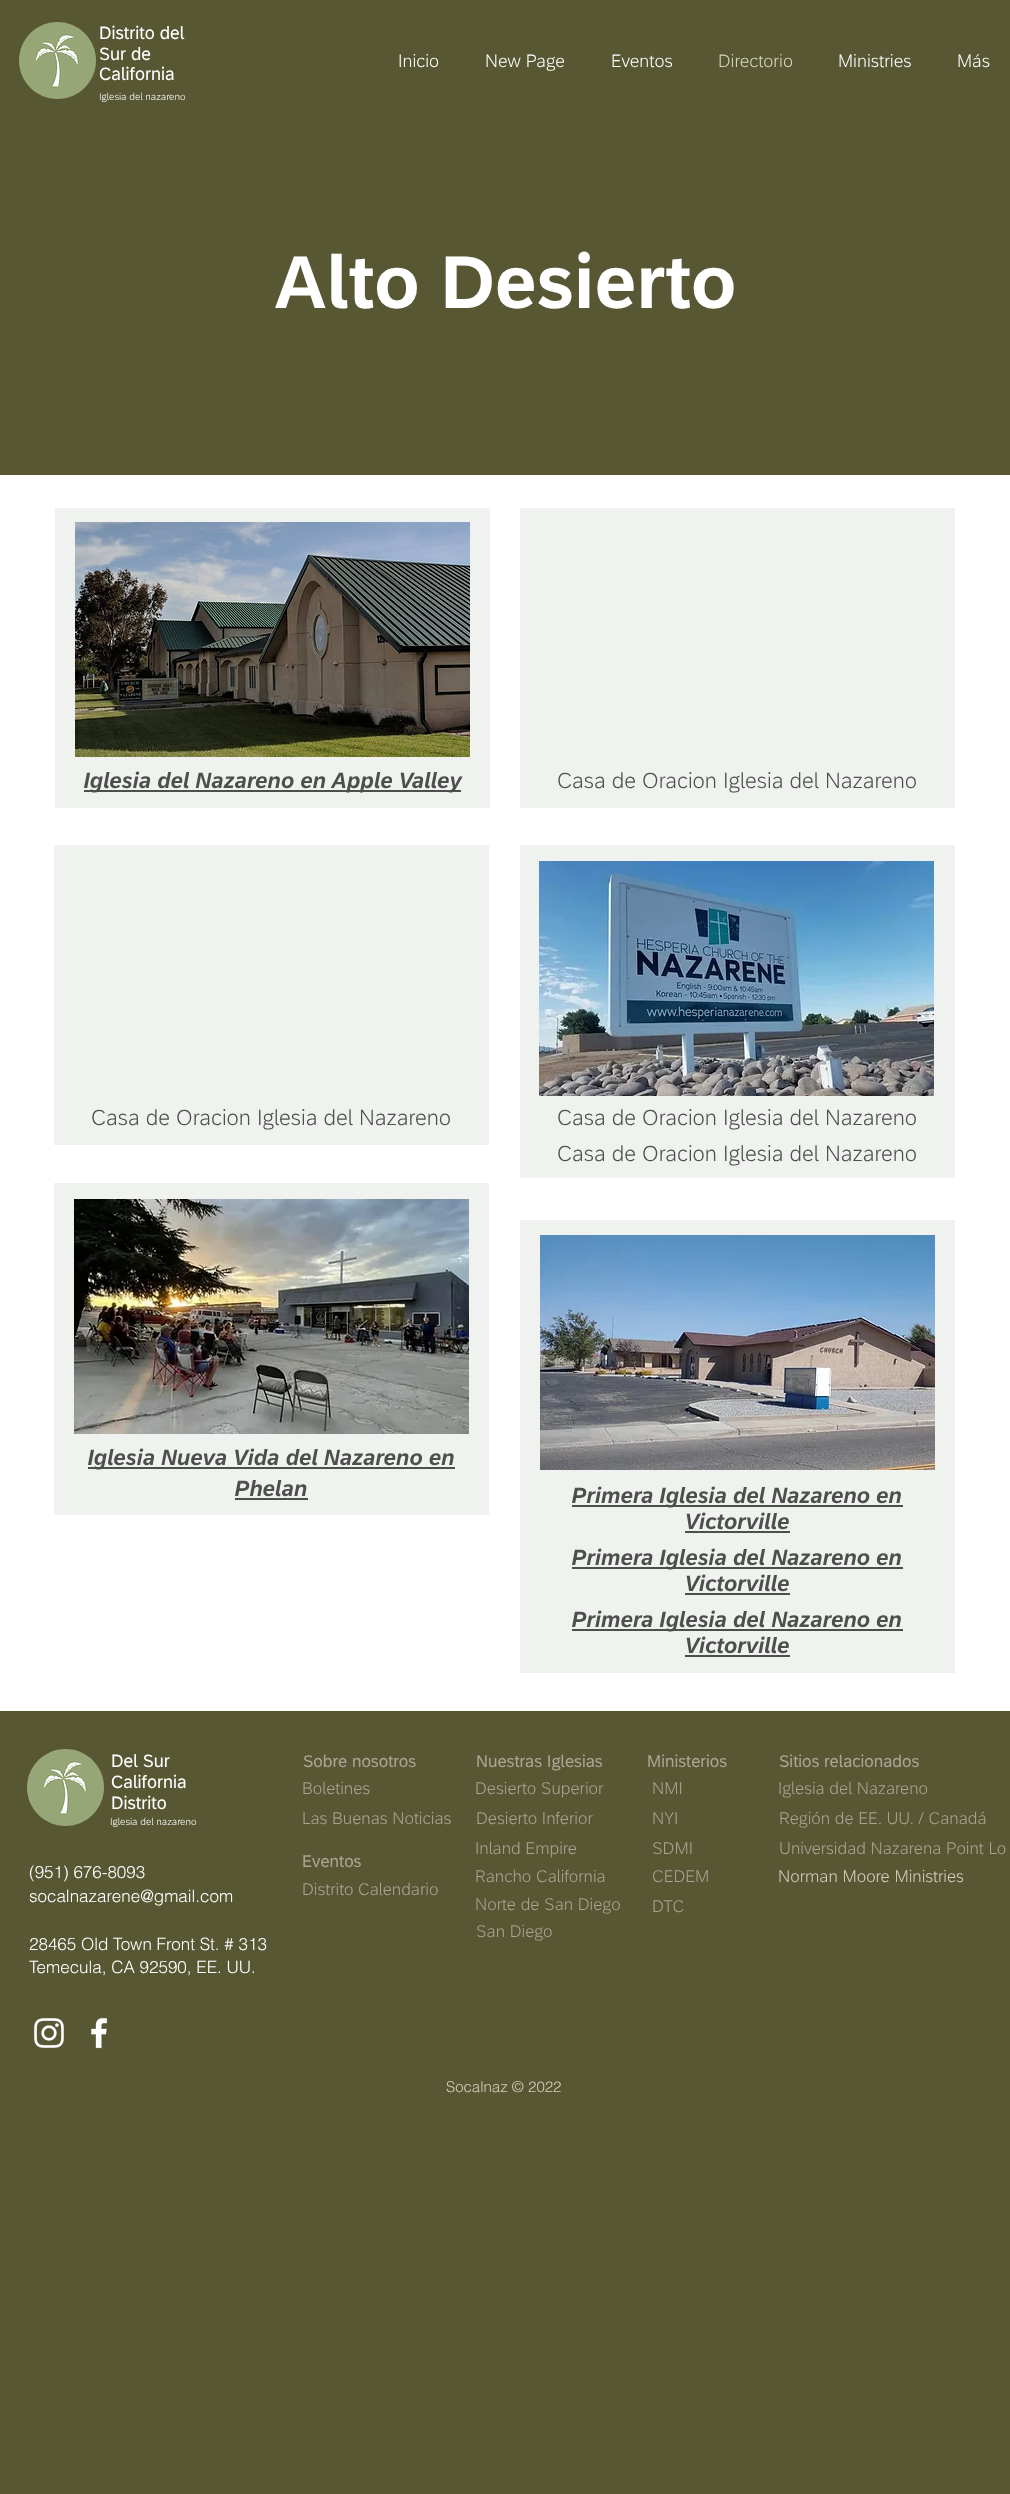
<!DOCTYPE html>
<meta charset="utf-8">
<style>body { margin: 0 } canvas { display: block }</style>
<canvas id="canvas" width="1010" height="2494"></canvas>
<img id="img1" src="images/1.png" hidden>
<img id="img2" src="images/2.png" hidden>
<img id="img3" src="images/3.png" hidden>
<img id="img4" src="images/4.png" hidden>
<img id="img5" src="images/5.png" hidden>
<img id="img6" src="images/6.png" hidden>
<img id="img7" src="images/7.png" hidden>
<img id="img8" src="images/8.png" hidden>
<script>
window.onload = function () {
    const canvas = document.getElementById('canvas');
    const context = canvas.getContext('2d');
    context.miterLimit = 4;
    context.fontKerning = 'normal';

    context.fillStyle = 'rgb(88, 87, 52)';
    context.fillRect(0, 0, 1010, 2494);
    context.drawImage(document.getElementById('img1'), 19, 22, 77, 77);
    context.fillStyle = 'rgb(255, 255, 255)';
    context.fillRect(0, 475, 1010, 1236);
    context.fillStyle = 'rgb(240, 242, 240)';
    context.fillRect(55, 508, 435, 300);
    context.drawImage(document.getElementById('img2'), 75, 522, 395, 235);
    context.fillStyle = 'rgb(77, 79, 77)';
    context.fillRect(84, 790, 377, 2);
    context.fillStyle = 'rgb(240, 242, 240)';
    context.fillRect(520, 508, 435, 300);
    context.fillRect(54, 845, 435, 300);
    context.fillRect(520, 845, 435, 333);
    context.drawImage(document.getElementById('img3'), 539, 861, 395, 235);
    context.fillRect(54, 1183, 435, 332);
    context.drawImage(document.getElementById('img4'), 74, 1199, 395, 235);
    context.fillStyle = 'rgb(77, 79, 77)';
    context.fillRect(88, 1467, 367, 2);
    context.fillRect(235, 1498, 73, 2);
    context.fillStyle = 'rgb(240, 242, 240)';
    context.fillRect(520, 1220, 435, 453);
    context.drawImage(document.getElementById('img5'), 540, 1235, 395, 235);
    context.fillStyle = 'rgb(77, 79, 77)';
    context.fillRect(572, 1505, 331, 2);
    context.fillRect(685, 1531, 105, 2);
    context.fillRect(572, 1567, 331, 2);
    context.fillRect(685, 1593, 105, 2);
    context.fillRect(572, 1629, 331, 2);
    context.fillRect(685, 1655, 105, 2);
    context.drawImage(document.getElementById('img6'), 27, 1749, 77, 77);
    context.drawImage(document.getElementById('img7'), 34, 2018, 30, 30);
    context.drawImage(document.getElementById('img8'), 91, 2017, 17, 32);
    context.font = '18px "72"';
    context.fillStyle = 'rgb(255, 255, 255)';
    context.fillText('Distrito del', 99, 39);
    context.fillText('Sur de', 99, 60);
    context.fillText('California', 99, 80);
    context.font = '300 18px "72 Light"';
    context.fillText('Inicio', 398, 67);
    context.fillText('New Page', 485, 67);
    context.fillText('Eventos', 611, 67);
    context.fillStyle = 'rgb(213, 213, 191)';
    context.fillText('Directorio', 718, 67);
    context.fillStyle = 'rgb(255, 255, 255)';
    context.fillText('Ministries', 838, 67);
    context.fillText('Más', 957, 67);
    context.font = '300 10px "72 Light"';
    context.fillText('Iglesia del nazareno', 99, 100);
    context.font = 'bold 75px "72"';
    context.fillText('Alto Desierto', 274, 308);
    context.font = 'italic bold 22px "72"';
    context.fillStyle = 'rgb(77, 79, 77)';
    context.fillText('Iglesia del Nazareno en Apple Valley', 84, 788);
    context.font = '300 22px "72 Light"';
    context.fillText('Casa de Oracion Iglesia del Nazareno', 557, 788);
    context.fillText('Casa de Oracion Iglesia del Nazareno', 91, 1125);
    context.fillText('Casa de Oracion Iglesia del Nazareno', 557, 1125);
    context.fillText('Casa de Oracion Iglesia del Nazareno', 557, 1161);
    context.font = 'italic bold 22px "72"';
    context.fillText('Iglesia Nueva Vida del Nazareno en', 88, 1465);
    context.fillText('Phelan', 235, 1496);
    context.fillText('Primera Iglesia del Nazareno en', 572, 1503);
    context.fillText('Victorville', 685, 1529);
    context.fillText('Primera Iglesia del Nazareno en', 572, 1565);
    context.fillText('Victorville', 685, 1591);
    context.fillText('Primera Iglesia del Nazareno en', 572, 1627);
    context.fillText('Victorville', 685, 1653);
    context.font = '18px "72"';
    context.fillStyle = 'rgb(255, 255, 255)';
    context.fillText('Del Sur', 111, 1767);
    context.fillText('California', 111, 1788);
    context.fillText('Distrito', 111, 1809);
    context.font = '17px "72"';
    context.fillStyle = 'rgb(169, 164, 149)';
    context.fillText('Sobre nosotros', 303, 1767);
    context.fillText('Nuestras Iglesias', 476, 1767);
    context.fillText('Ministerios', 647, 1767);
    context.fillText('Sitios relacionados', 779, 1767);
    context.font = '300 17px "72 Light"';
    context.fillText('Boletines', 302, 1794);
    context.fillText('Desierto Superior', 475, 1794);
    context.fillText('NMI', 652, 1794);
    context.fillText('Iglesia del Nazareno', 778, 1794);
    context.font = '300 10px "72 Light"';
    context.fillStyle = 'rgb(255, 255, 255)';
    context.fillText('Iglesia del nazareno', 110, 1825);
    context.font = '300 17px "72 Light"';
    context.fillStyle = 'rgb(169, 164, 149)';
    context.fillText('Las Buenas Noticias', 302, 1824);
    context.fillText('Desierto Inferior', 476, 1824);
    context.fillText('NYI', 652, 1824);
    context.fillText('Región de EE. UU. / Canadá', 779, 1824);
    context.fillText('Inland Empire', 475, 1854);
    context.fillText('SDMI', 652, 1854);
    context.fillText('Universidad Nazarena Point Lo', 779, 1854);
    context.font = '17px "72"';
    context.fillText('Eventos', 302, 1867);
    context.font = '300 17px helvetica';
    context.fillStyle = 'rgb(255, 255, 255)';
    context.fillText('(951) 676-8093', 29, 1878);
    context.fillText('socalnazarene@gmail.com', 29, 1902);
    context.fillText('28465 Old Town Front St. # 313', 29, 1950);
    context.fillText('Temecula, CA 92590, EE. UU.', 29, 1973);
    context.font = '300 17px "72 Light"';
    context.fillStyle = 'rgb(169, 164, 149)';
    context.fillText('Rancho California', 475, 1882);
    context.fillText('CEDEM', 652, 1882);
    context.fillStyle = 'rgb(212, 207, 191)';
    context.fillText('Norman Moore Ministries', 778, 1882);
    context.fillStyle = 'rgb(169, 164, 149)';
    context.fillText('Distrito', 302, 1895);
    context.fillText('Calendario', 358, 1895);
    context.fillText('Norte de San Diego', 475, 1910);
    context.fillText('DTC', 652, 1912);
    context.fillText('San Diego', 476, 1937);
    context.font = '300 15px helvetica';
    context.fillStyle = 'rgb(212, 207, 191)';
    context.fillText('Socalnaz © 2022', 446, 2092);
};
</script>
